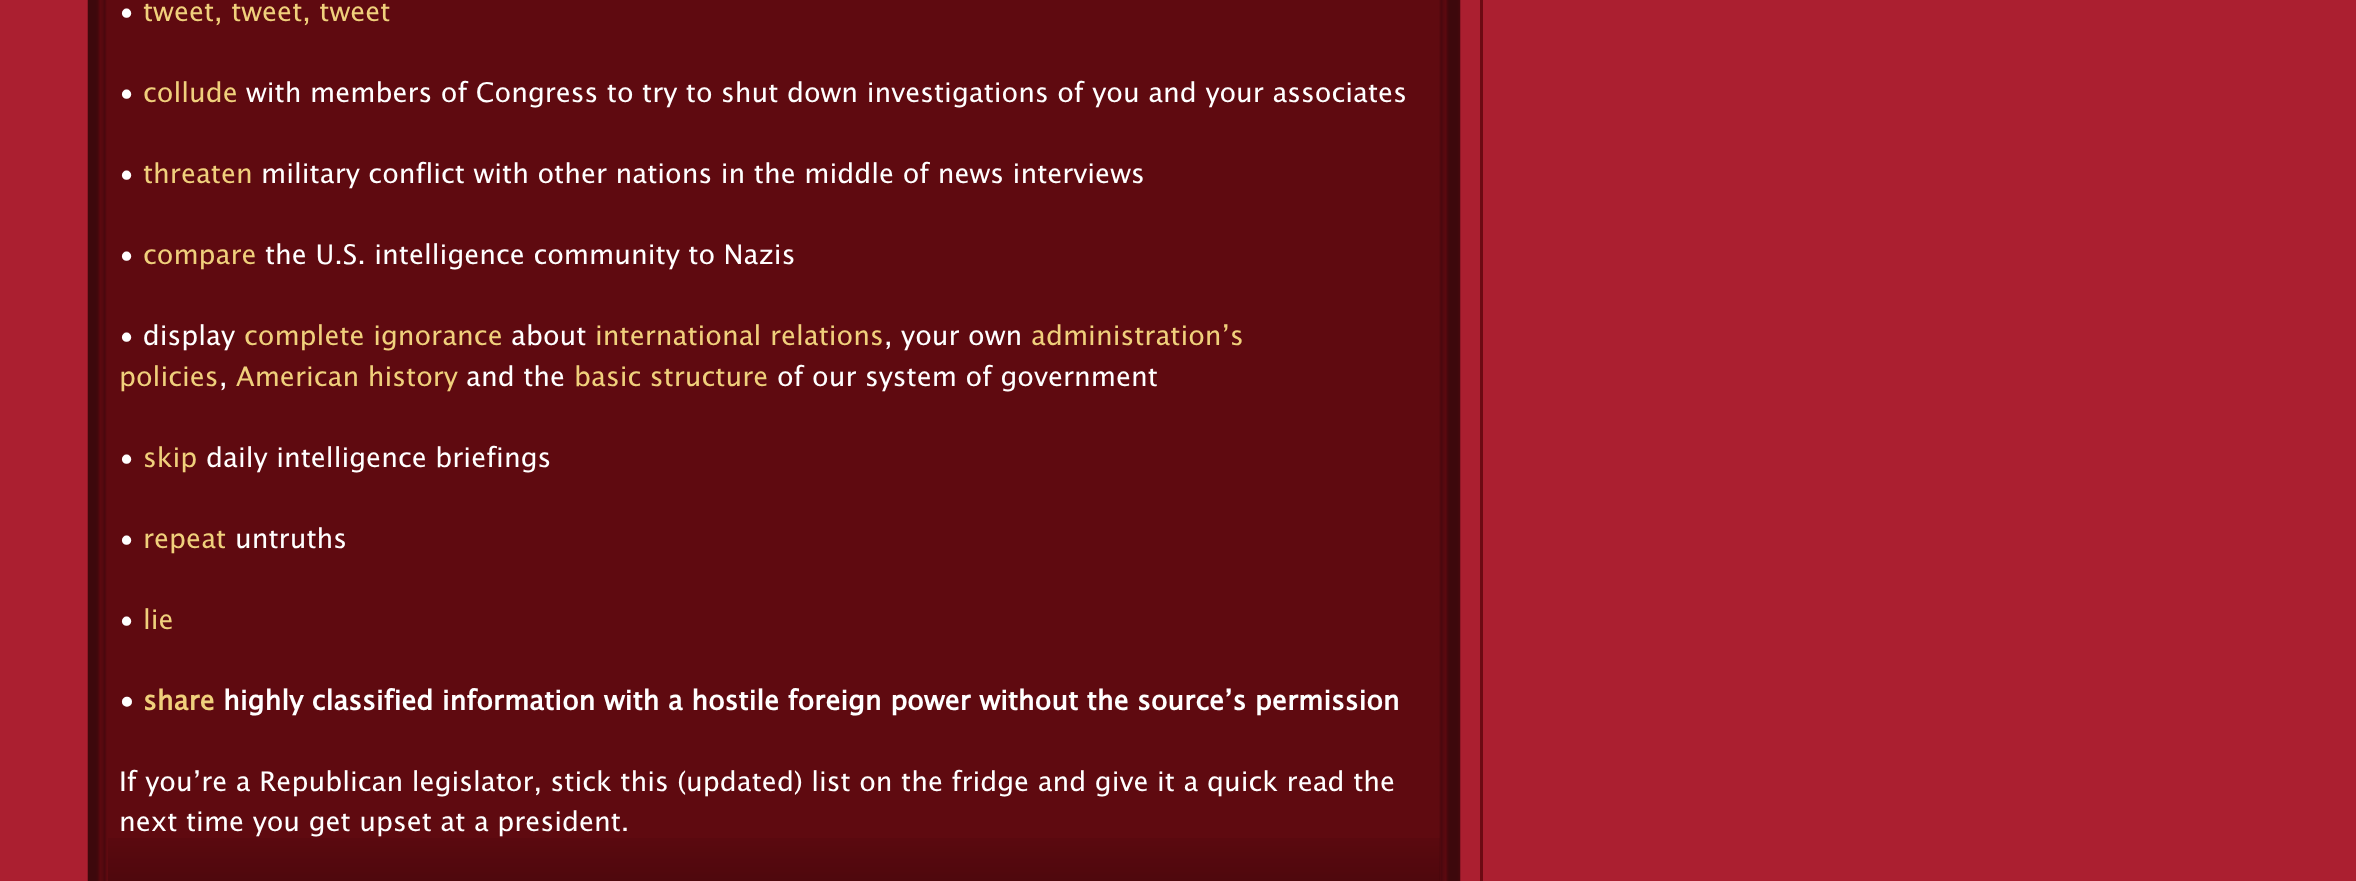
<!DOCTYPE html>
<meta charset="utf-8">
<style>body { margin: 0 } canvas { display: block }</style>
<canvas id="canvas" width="2356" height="881"></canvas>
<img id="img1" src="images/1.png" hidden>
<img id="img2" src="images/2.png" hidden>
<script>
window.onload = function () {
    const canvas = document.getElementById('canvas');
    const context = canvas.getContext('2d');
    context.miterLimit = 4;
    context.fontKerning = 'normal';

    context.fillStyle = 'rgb(171, 31, 48)';
    context.fillRect(0, 0, 2356, 881);
    context.fillStyle = 'rgb(108, 10, 19)';
    context.fillRect(1480, 0, 3, 881);
    context.drawImage(document.getElementById('img1'), 87, 0, 1374, 881);
    context.drawImage(document.getElementById('img2'), 108, 838, 1332, 43);
    context.font = '27px Lucida Grande';
    context.fillStyle = 'rgb(255, 255, 255)';
    context.fillText('•', 119, 21);
    context.fillStyle = 'rgb(240, 208, 124)';
    context.fillText('tweet, tweet, tweet', 143, 21);
    context.fillStyle = 'rgb(255, 255, 255)';
    context.fillText('•', 119, 102);
    context.fillStyle = 'rgb(240, 208, 124)';
    context.fillText('collude', 143, 102);
    context.fillStyle = 'rgb(255, 255, 255)';
    context.fillText('with members of Congress to try to shut down investigations of you and your associates', 246, 102);
    context.fillText('•', 119, 183);
    context.fillStyle = 'rgb(240, 208, 124)';
    context.fillText('threaten', 143, 183);
    context.fillStyle = 'rgb(255, 255, 255)';
    context.fillText('military conflict with other nations in the middle of news interviews', 261, 183);
    context.fillText('•', 119, 264);
    context.fillStyle = 'rgb(240, 208, 124)';
    context.fillText('compare', 143, 264);
    context.fillStyle = 'rgb(255, 255, 255)';
    context.fillText('the U.S. intelligence community to Nazis', 265, 264);
    context.fillText('• display', 119, 345);
    context.fillStyle = 'rgb(240, 208, 124)';
    context.fillText('complete ignorance', 244, 345);
    context.fillStyle = 'rgb(255, 255, 255)';
    context.fillText('about', 511, 345);
    context.fillStyle = 'rgb(240, 208, 124)';
    context.fillText('international relations', 595, 345);
    context.fillStyle = 'rgb(255, 255, 255)';
    context.fillText(', your own', 884, 345);
    context.fillStyle = 'rgb(240, 208, 124)';
    context.fillText('administration’s', 1031, 345);
    context.fillText('policies', 119, 386);
    context.fillStyle = 'rgb(255, 255, 255)';
    context.fillText(',', 219, 386);
    context.fillStyle = 'rgb(240, 208, 124)';
    context.fillText('American history', 236, 386);
    context.fillStyle = 'rgb(255, 255, 255)';
    context.fillText('and the', 466, 386);
    context.fillStyle = 'rgb(240, 208, 124)';
    context.fillText('basic structure', 574, 386);
    context.fillStyle = 'rgb(255, 255, 255)';
    context.fillText('of our system of government', 777, 386);
    context.fillText('•', 119, 467);
    context.fillStyle = 'rgb(240, 208, 124)';
    context.fillText('skip', 143, 467);
    context.fillStyle = 'rgb(255, 255, 255)';
    context.fillText('daily intelligence briefings', 206, 467);
    context.fillText('•', 119, 548);
    context.fillStyle = 'rgb(240, 208, 124)';
    context.fillText('repeat', 143, 548);
    context.fillStyle = 'rgb(255, 255, 255)';
    context.fillText('untruths', 235, 548);
    context.fillText('•', 119, 629);
    context.fillStyle = 'rgb(240, 208, 124)';
    context.fillText('lie', 143, 629);
    context.font = 'bold 27px Lucida Grande';
    context.fillStyle = 'rgb(255, 255, 255)';
    context.fillText('•', 119, 710);
    context.fillStyle = 'rgb(240, 208, 124)';
    context.fillText('share', 143, 710);
    context.fillStyle = 'rgb(255, 255, 255)';
    context.fillText('highly classified information with a hostile foreign power without the source’s permission', 223, 710);
    context.font = '27px Lucida Grande';
    context.fillText('If you’re a Republican legislator, stick this (updated) list on the fridge and give it a quick read the', 119, 791);
    context.fillText('next time you get upset at a president.', 119, 831);
};
</script>
